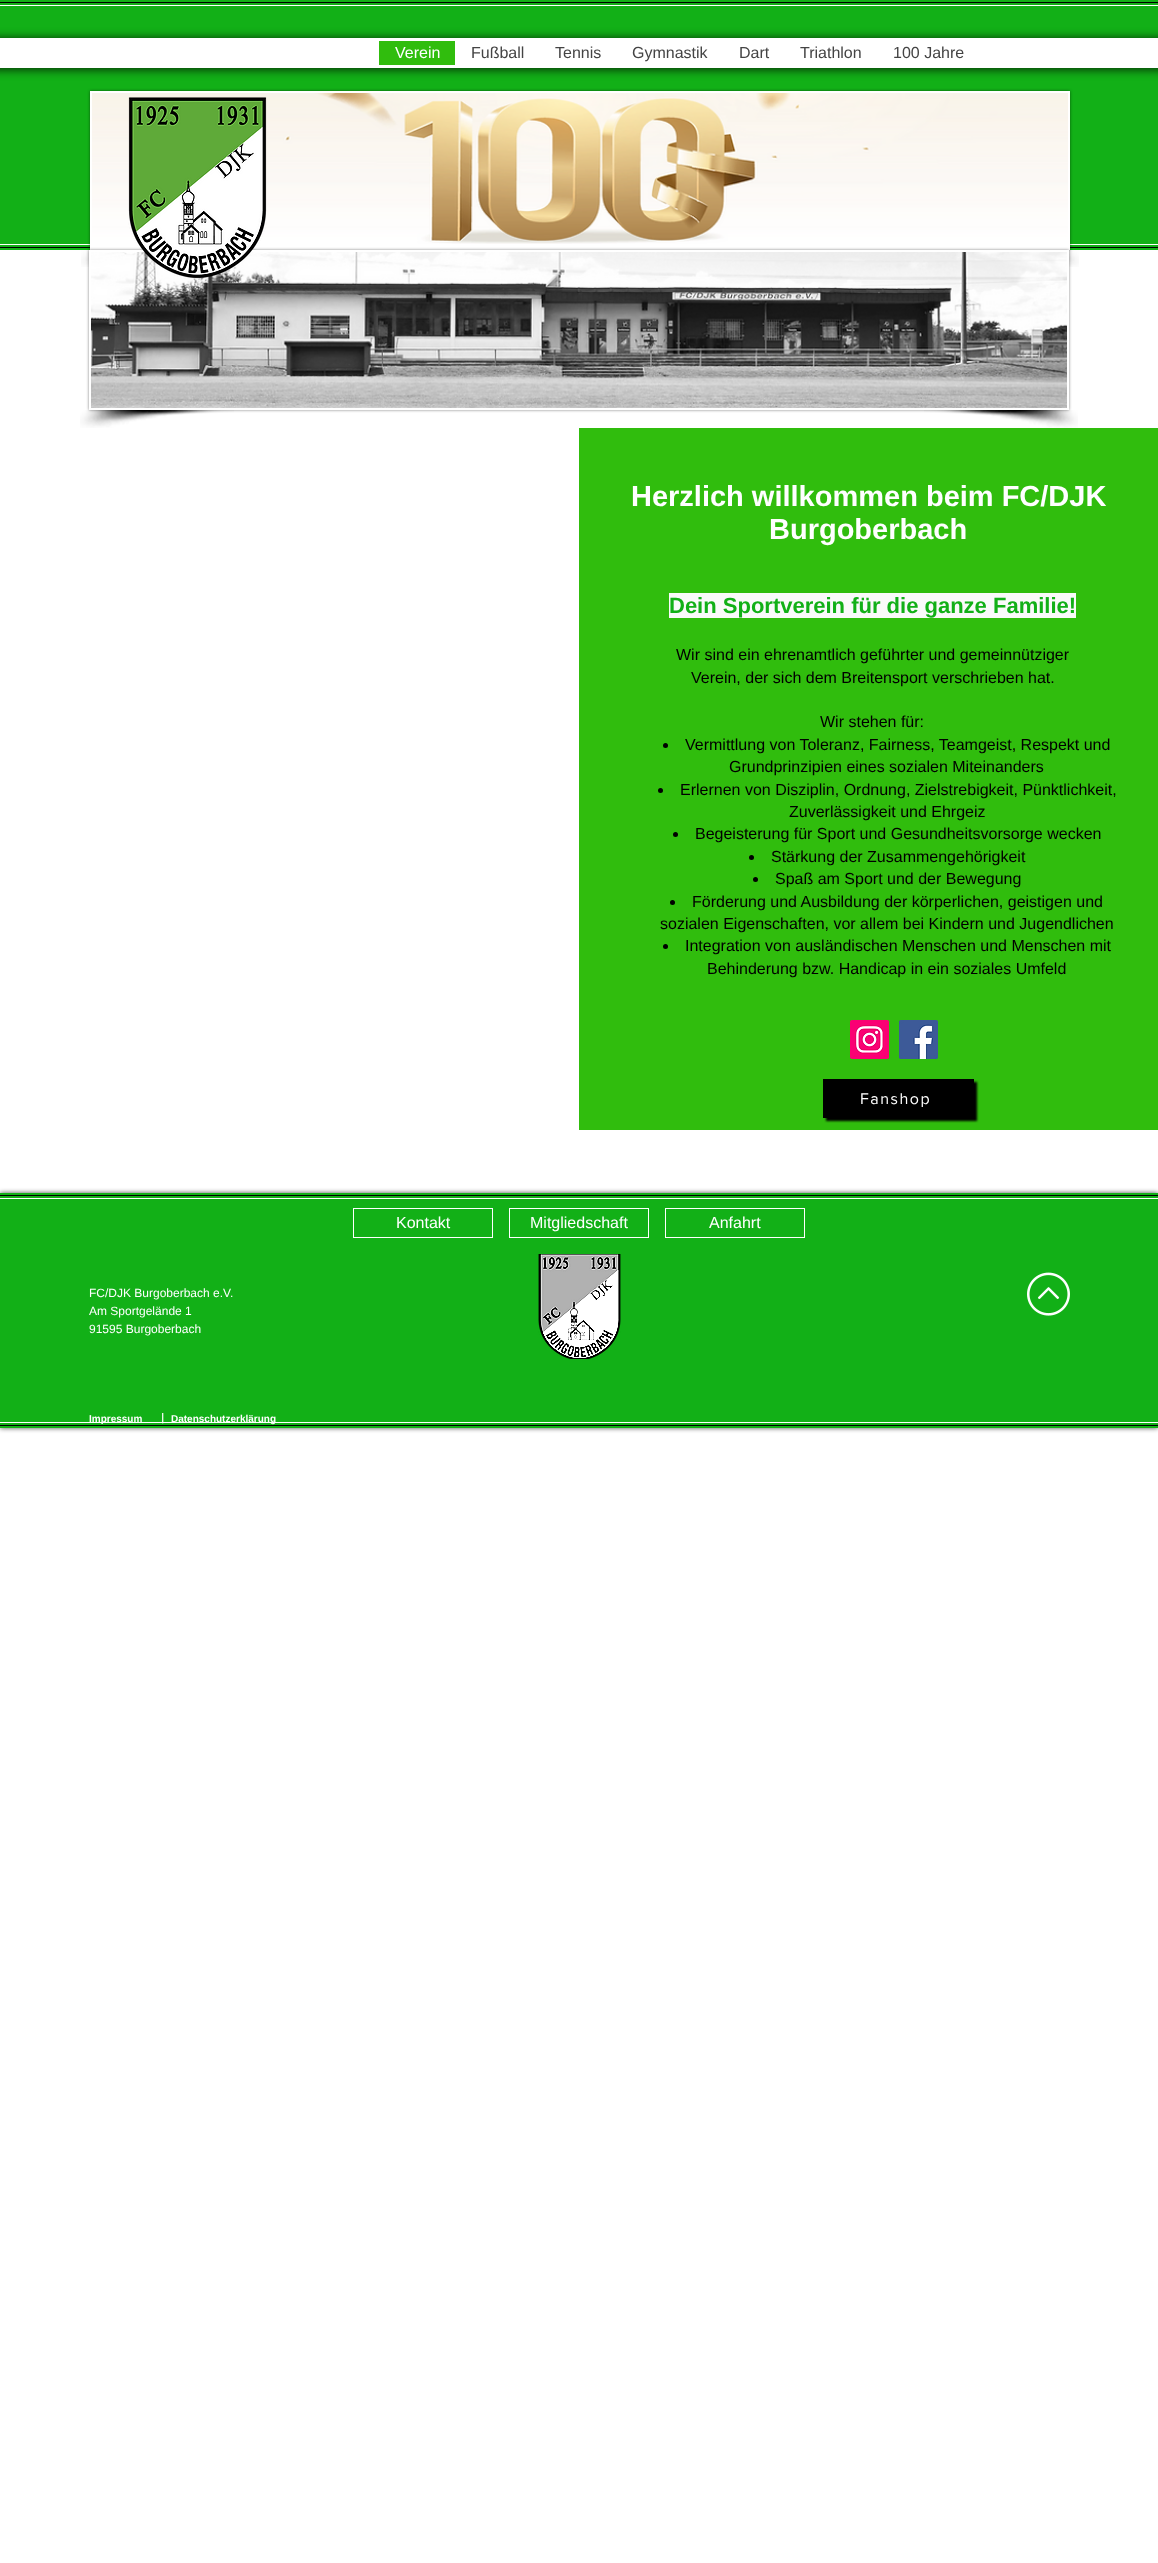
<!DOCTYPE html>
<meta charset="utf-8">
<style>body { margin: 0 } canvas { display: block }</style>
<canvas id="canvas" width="1158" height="2563"></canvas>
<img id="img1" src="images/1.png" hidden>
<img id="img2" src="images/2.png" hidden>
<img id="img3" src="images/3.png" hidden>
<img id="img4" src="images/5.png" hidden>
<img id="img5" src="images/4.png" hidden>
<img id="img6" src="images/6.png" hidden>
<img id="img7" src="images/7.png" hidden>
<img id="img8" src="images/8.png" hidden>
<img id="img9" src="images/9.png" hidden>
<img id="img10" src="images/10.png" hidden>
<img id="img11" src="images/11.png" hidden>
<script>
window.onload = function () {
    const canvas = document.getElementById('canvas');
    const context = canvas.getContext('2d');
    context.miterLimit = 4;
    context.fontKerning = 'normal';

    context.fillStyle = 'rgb(255, 255, 255)';
    context.fillRect(0, 0, 1158, 2563);
    context.fillStyle = 'rgb(18, 176, 23)';
    context.fillRect(0, 0, 1158, 250);
    context.fillStyle = 'rgb(0, 0, 0)';
    context.fillRect(0, 2, 1158, 1);
    context.fillRect(0, 247, 1158, 1);
    context.fillStyle = 'rgb(255, 255, 255)';
    context.fillRect(0, 5, 1158, 1);
    context.fillRect(0, 244, 1158, 1);
    context.fillStyle = 'rgba(0, 0, 0, 0.7)';
    context.filter = 'blur(5px)';
    context.beginPath();
    context.rect(-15, 38, 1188, 32);
    context.fill();
    context.filter = 'none';
    context.fillStyle = 'rgb(255, 255, 255)';
    context.fillRect(0, 38, 1158, 30);
    context.fillStyle = 'rgb(48, 189, 13)';
    context.fillRect(379, 41, 76, 24);
    context.fillStyle = 'rgba(0, 0, 0, 0.5)';
    context.filter = 'blur(1.5px)';
    context.beginPath();
    context.rect(90, 91, 980, 159);
    context.fill();
    context.filter = 'none';
    context.fillStyle = 'rgb(255, 255, 255)';
    context.fillRect(90, 91, 980, 159);
    context.drawImage(document.getElementById('img1'), 92, 93, 976, 151);
    context.drawImage(document.getElementById('img2'), 81, 250, 8, 17);
    context.drawImage(document.getElementById('img3'), 1069, 250, 10, 17);
    context.fillStyle = 'rgba(0, 0, 0, 0.5)';
    context.filter = 'blur(1.5px)';
    context.beginPath();
    context.rect(89, 250, 980, 160);
    context.fill();
    context.filter = 'none';
    context.fillStyle = 'rgb(255, 255, 255)';
    context.fillRect(89, 250, 980, 160);
    context.drawImage(document.getElementById('img4'), 91, 252, 976, 156);
    context.drawImage(document.getElementById('img5'), 128, 97, 139, 182);
    context.drawImage(document.getElementById('img6'), 80, 410, 154, 18);
    context.drawImage(document.getElementById('img7'), 924, 410, 154, 18);
    context.fillStyle = 'rgb(48, 189, 13)';
    context.fillRect(579, 428, 579, 702);
    context.fillStyle = 'rgb(250, 250, 250)';
    context.fillRect(669, 593, 407, 25);
    context.fillStyle = 'rgb(0, 0, 0)';
    context.beginPath();
    context.arc(665.5, 745.5, 2.5, 0, 2 * Math.PI);
    context.fill();
    context.beginPath();
    context.arc(660.5, 790.5, 2.5, 0, 2 * Math.PI);
    context.fill();
    context.beginPath();
    context.arc(675.5, 834.5, 2.5, 0, 2 * Math.PI);
    context.fill();
    context.beginPath();
    context.arc(751.5, 857.5, 2.5, 0, 2 * Math.PI);
    context.fill();
    context.beginPath();
    context.arc(755.5, 879.5, 2.5, 0, 2 * Math.PI);
    context.fill();
    context.beginPath();
    context.arc(672.5, 902.5, 2.5, 0, 2 * Math.PI);
    context.fill();
    context.beginPath();
    context.arc(665.5, 946.5, 2.5, 0, 2 * Math.PI);
    context.fill();
    context.drawImage(document.getElementById('img8'), 850, 1020, 39, 39);
    context.drawImage(document.getElementById('img9'), 899, 1020, 39, 39);
    context.filter = 'blur(1px)';
    context.beginPath();
    context.rect(826, 1082, 151, 39);
    context.fill();
    context.filter = 'none';
    context.fillRect(823, 1079, 151, 39);
    context.fillStyle = 'rgba(0, 0, 0, 0.7)';
    context.filter = 'blur(2.5px)';
    context.beginPath();
    context.rect(0, 1193, 1158, 235);
    context.fill();
    context.filter = 'none';
    context.fillStyle = 'rgb(18, 176, 23)';
    context.fillRect(0, 1193, 1158, 235);
    context.fillStyle = 'rgb(0, 0, 0)';
    context.fillRect(0, 1195, 1158, 1);
    context.fillRect(0, 1425, 1158, 1);
    context.fillStyle = 'rgb(255, 255, 255)';
    context.fillRect(0, 1198, 1158, 1);
    context.fillRect(0, 1422, 1158, 1);
    context.strokeStyle = 'rgb(255, 255, 255)';
    context.strokeRect(353.5, 1208.5, 139, 29);
    context.strokeRect(509.5, 1208.5, 139, 29);
    context.strokeRect(665.5, 1208.5, 139, 29);
    context.drawImage(document.getElementById('img10'), 538, 1254, 83, 105);
    context.drawImage(document.getElementById('img11'), 1027, 1272, 43, 44);
    context.font = '16px Liberation Sans';
    context.fillText('Verein', 395, 58);
    context.fillStyle = 'rgb(68, 68, 68)';
    context.fillText('Fußball', 471, 58);
    context.fillText('Tennis', 555, 58);
    context.fillText('Gymnastik', 632, 58);
    context.fillText('Dart', 739, 58);
    context.fillText('Triathlon', 800, 58);
    context.fillText('100 Jahre', 893, 58);
    context.font = 'bold 29px Liberation Sans';
    context.fillStyle = 'rgb(255, 255, 255)';
    context.fillText('Herzlich willkommen beim FC/DJK', 631, 506);
    context.fillText('Burgoberbach', 769, 539);
    context.font = 'bold 22px Liberation Sans';
    context.fillStyle = 'rgb(18, 176, 23)';
    context.fillText('Dein Sportverein für die ganze Familie!', 669, 613);
    context.font = '16px Liberation Sans';
    context.fillStyle = 'rgb(0, 0, 0)';
    context.fillText('Wir sind ein ehrenamtlich geführter und gemeinnütziger', 676, 660);
    context.fillText('Verein, der sich dem Breitensport verschrieben hat.', 691, 683);
    context.fillText('Wir stehen für:', 820, 727);
    context.fillText('Vermittlung von Toleranz, Fairness, Teamgeist, Respekt und', 685, 750);
    context.fillText('Grundprinzipien eines sozialen Miteinanders', 729, 772);
    context.fillText('Erlernen von Disziplin, Ordnung, Zielstrebigkeit, Pünktlichkeit,', 680, 795);
    context.fillText('Zuverlässigkeit und Ehrgeiz', 789, 817);
    context.fillText('Begeisterung für Sport und Gesundheitsvorsorge wecken', 695, 839);
    context.fillText('Stärkung der Zusammengehörigkeit', 771, 862);
    context.fillText('Spaß am Sport und der Bewegung', 775, 884);
    context.fillText('Förderung und Ausbildung der körperlichen, geistigen und', 692, 907);
    context.fillText('sozialen Eigenschaften, vor allem bei Kindern und Jugendlichen', 660, 929);
    context.fillText('Integration von ausländischen Menschen und Menschen mit', 685, 951);
    context.fillText('Behinderung bzw. Handicap in ein soziales Umfeld', 707, 974);
    context.letterSpacing = '1.5px';
    context.font = '16px "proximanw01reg"';
    context.fillStyle = 'rgb(255, 255, 255)';
    context.fillText('Fanshop', 860, 1104);
    context.letterSpacing = '0px';
    context.font = '16px Liberation Sans';
    context.fillText('Kontakt', 396, 1228);
    context.fillText('Mitgliedschaft', 530, 1228);
    context.fillText('Anfahrt', 709, 1228);
    context.font = '12px Liberation Sans';
    context.fillText('FC/DJK Burgoberbach e.V.', 89, 1297);
    context.fillText('Am Sportgelände 1', 89, 1315);
    context.fillText('91595 Burgoberbach', 89, 1333);
    context.font = 'bold 10px Liberation Sans';
    context.fillText('Impressum', 89, 1422);
    context.font = 'bold 14px "proximanw01reg"';
    context.fillText('|', 161, 1423);
    context.font = 'bold 10px Liberation Sans';
    context.fillText('Datenschutzerklärung', 171, 1422);
};
</script>
